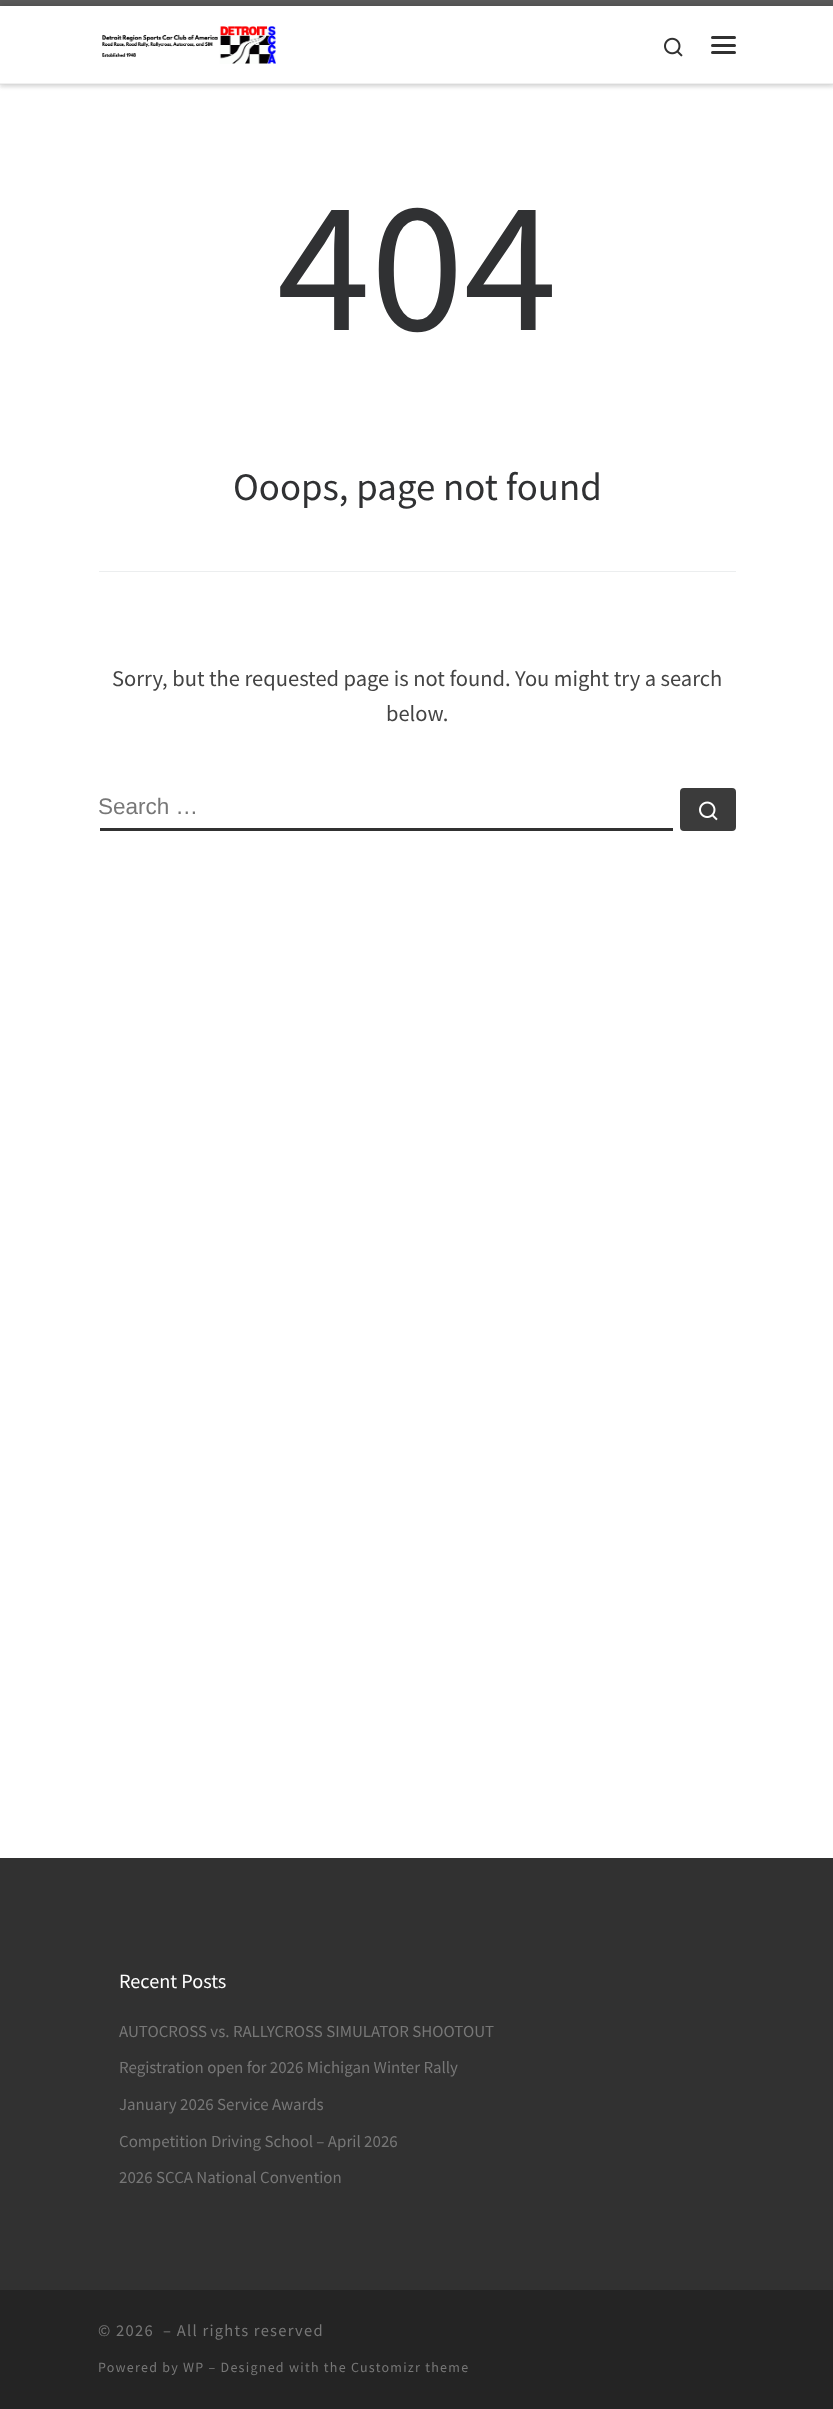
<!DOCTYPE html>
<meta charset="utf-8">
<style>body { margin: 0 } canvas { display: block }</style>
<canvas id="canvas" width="833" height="2409"></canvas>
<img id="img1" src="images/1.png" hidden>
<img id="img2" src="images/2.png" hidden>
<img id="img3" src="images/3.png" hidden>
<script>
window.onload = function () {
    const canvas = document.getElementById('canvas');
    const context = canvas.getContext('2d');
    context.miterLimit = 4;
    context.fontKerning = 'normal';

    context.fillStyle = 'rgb(255, 255, 255)';
    context.fillRect(0, 0, 833, 2409);
    context.fillStyle = 'rgba(102, 102, 102, 0.08)';
    context.filter = 'blur(1px)';
    context.beginPath();
    context.rect(0, 3, 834, 85);
    context.fill();
    context.filter = 'none';
    context.fillStyle = 'rgb(90, 90, 90)';
    context.fillRect(0, 0, 833, 6);
    context.fillStyle = 'rgb(239, 239, 239)';
    context.beginPath();
    context.moveTo(0, 84);
    context.lineTo(0, 85);
    context.lineTo(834, 85);
    context.lineTo(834, 8);
    context.lineTo(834, 84);
    context.closePath();
    context.fill();
    context.fillStyle = 'rgba(0, 0, 0, 0.2)';
    context.filter = 'blur(3px)';
    context.beginPath();
    context.rect(0, 6, 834, 78);
    context.fill();
    context.filter = 'none';
    context.fillStyle = 'rgb(255, 255, 255)';
    context.fillRect(0, 6, 833, 77);
    context.drawImage(document.getElementById('img1'), 102, 26, 174, 38);
    context.drawImage(document.getElementById('img2'), 664, 37, 19, 20);
    context.fillStyle = 'rgb(49, 49, 49)';
    context.beginPath();
    context.roundRect(711, 36, 25, 3, 1.5);
    context.fill();
    context.beginPath();
    context.roundRect(711, 44, 25, 3, 1.5);
    context.fill();
    context.beginPath();
    context.roundRect(711, 51, 25, 3, 1.5);
    context.fill();
    context.fillStyle = 'rgb(240, 240, 240)';
    context.fillRect(0, 83, 833, 1);
    context.fillStyle = 'rgb(236, 238, 239)';
    context.fillRect(99, 571, 637, 1);
    context.fillStyle = 'rgb(49, 49, 49)';
    context.fillRect(100, 828, 573, 3);
    context.fillStyle = 'rgb(59, 59, 59)';
    context.beginPath();
    context.roundRect(681.5, 789.5, 53, 40, 2.5);
    context.fill();
    context.strokeStyle = 'rgb(59, 59, 59)';
    context.lineWidth = 3;
    context.stroke();
    context.drawImage(document.getElementById('img3'), 699, 801, 19, 20);
    context.fillStyle = 'rgb(49, 49, 49)';
    context.fillRect(0, 1858, 833, 432);
    context.fillStyle = 'rgb(36, 36, 36)';
    context.fillRect(0, 2290, 833, 119);
    context.font = '188px Source Sans Pro';
    context.fillStyle = 'rgb(48, 49, 51)';
    context.fillText('404', 277, 330);
    context.font = '38.9px Source Sans Pro';
    context.fillText('Ooops, page not found', 233, 500);
    context.font = '22.5px Source Sans Pro';
    context.fillStyle = 'rgb(68, 68, 68)';
    context.fillText('Sorry, but the requested page is not found. You might try a search', 112, 686);
    context.fillText('below.', 386, 721);
    context.font = '22.5px Liberation Sans';
    context.fillStyle = 'rgb(119, 119, 119)';
    context.fillText('Search …', 98, 814);
    context.font = '20.25px Source Sans Pro';
    context.fillStyle = 'rgb(255, 255, 255)';
    context.fillText('Recent Posts', 119, 1988);
    context.font = '16.9px Source Sans Pro';
    context.fillStyle = 'rgb(119, 119, 119)';
    context.fillText('AUTOCROSS vs. RALLYCROSS SIMULATOR SHOOTOUT', 119, 2037);
    context.fillText('Registration open for 2026 Michigan Winter Rally', 119, 2073);
    context.fillText('January 2026 Service Awards', 119, 2110);
    context.fillText('Competition Driving School – April 2026', 119, 2147);
    context.fillText('2026 SCCA National Convention', 119, 2183);
    context.letterSpacing = '1.25px';
    context.font = '16.5px Source Sans Pro';
    context.fillText('© 2026', 98, 2336);
    context.fillText('– All rights reserved', 163, 2336);
    context.font = '14px Source Sans Pro';
    context.fillText('Powered by WP – Designed with the Customizr theme', 98, 2372);
};
</script>
